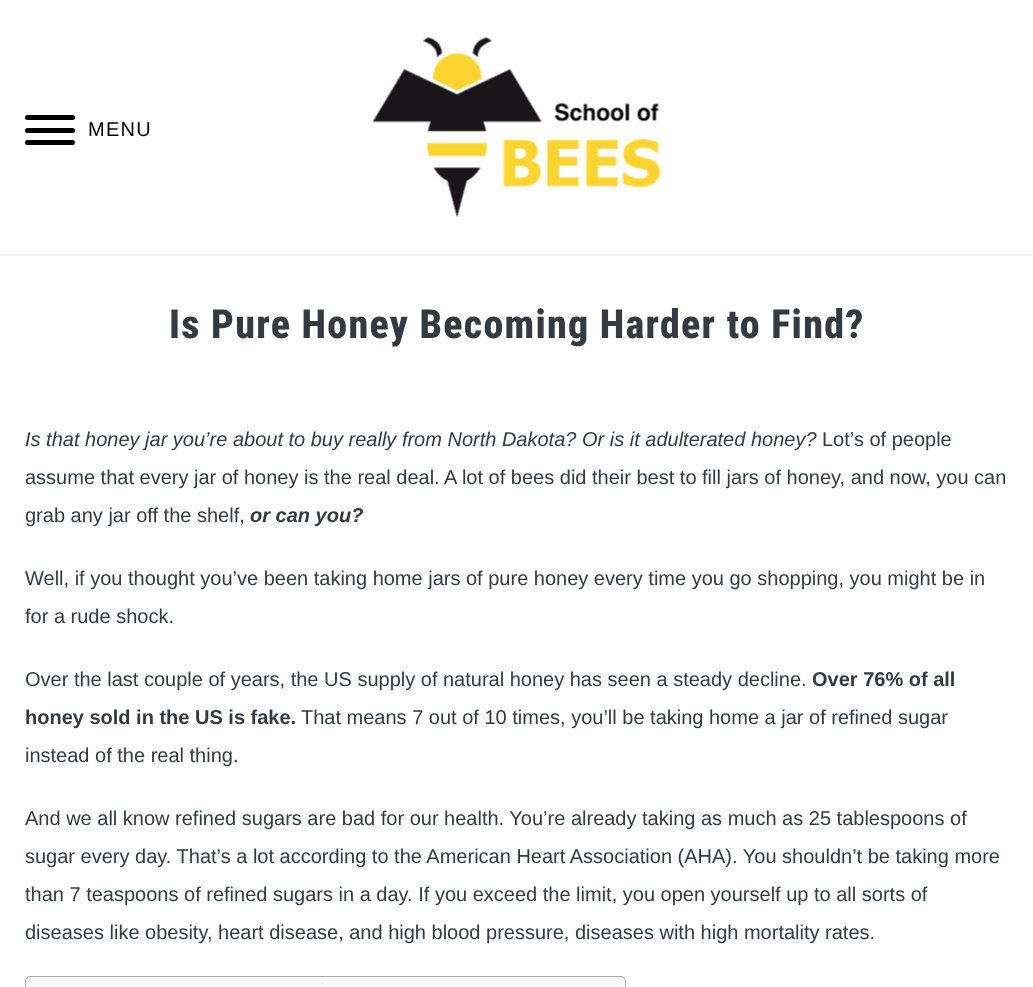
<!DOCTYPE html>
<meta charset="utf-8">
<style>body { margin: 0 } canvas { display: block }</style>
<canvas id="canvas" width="1033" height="987"></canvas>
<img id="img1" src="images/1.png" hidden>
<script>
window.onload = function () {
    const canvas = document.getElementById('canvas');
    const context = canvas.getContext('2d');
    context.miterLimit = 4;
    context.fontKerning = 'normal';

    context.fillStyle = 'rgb(255, 255, 255)';
    context.fillRect(0, 0, 1033, 987);
    context.fillStyle = 'rgb(0, 0, 0)';
    context.beginPath();
    context.roundRect(25, 128, 50, 5, 2.5);
    context.fill();
    context.beginPath();
    context.roundRect(25, 115, 50, 5, 2.5);
    context.fill();
    context.beginPath();
    context.roundRect(25, 140, 50, 5, 2.5);
    context.fill();
    context.drawImage(document.getElementById('img1'), 372, 37, 289, 180);
    context.fillStyle = 'rgb(240, 240, 240)';
    context.fillRect(0, 254, 1033, 2);
    context.fillStyle = 'rgb(249, 249, 249)';
    context.beginPath();
    context.roundRect(25.5, 976.5, 600, 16, 4.5);
    context.fill();
    context.strokeStyle = 'rgb(170, 170, 170)';
    context.stroke();
    context.letterSpacing = '1.25px';
    context.font = '20px Liberation Sans';
    context.fillStyle = 'rgb(0, 0, 0)';
    context.fillText('MENU', 88, 136);
    context.font = '800 40px Roboto Condensed';
    context.fillStyle = 'rgb(54, 57, 64)';
    context.fillText('Is Pure Honey Becoming Harder to Find?', 169, 338);
    context.letterSpacing = '0px';
    context.font = 'italic 20px Liberation Sans';
    context.fillText('Is that honey jar you’re about to buy really from North Dakota? Or is it adulterated honey?', 25, 446);
    context.font = '20px Liberation Sans';
    context.fillText('Lot’s of people', 822, 446);
    context.fillText('assume that every jar of honey is the real deal. A lot of bees did their best to fill jars of honey, and now, you can', 25, 484);
    context.fillText('grab any jar off the shelf,', 25, 522);
    context.font = 'italic bold 20px Liberation Sans';
    context.fillText('or can you?', 250, 522);
    context.font = '20px Liberation Sans';
    context.fillText('Well, if you thought you’ve been taking home jars of pure honey every time you go shopping, you might be in', 25, 585);
    context.fillText('for a rude shock.', 25, 623);
    context.fillText('Over the last couple of years, the US supply of natural honey has seen a steady decline.', 25, 686);
    context.font = 'bold 20px Liberation Sans';
    context.fillText('Over 76% of all', 812, 686);
    context.fillText('honey sold in the US is fake.', 25, 724);
    context.font = '20px Liberation Sans';
    context.fillText('That means 7 out of 10 times, you’ll be taking home a jar of refined sugar', 301, 724);
    context.fillText('instead of the real thing.', 25, 762);
    context.fillText('And we all know refined sugars are bad for our health. You’re already taking as much as 25 tablespoons of', 25, 825);
    context.fillText('sugar every day. That’s a lot according to the American Heart Association (AHA). You shouldn’t be taking more', 25, 863);
    context.fillText('than 7 teaspoons of refined sugars in a day. If you exceed the limit, you open yourself up to all sorts of', 25, 901);
    context.fillText('diseases like obesity, heart disease, and high blood pressure, diseases with high mortality rates.', 25, 939);
};
</script>
